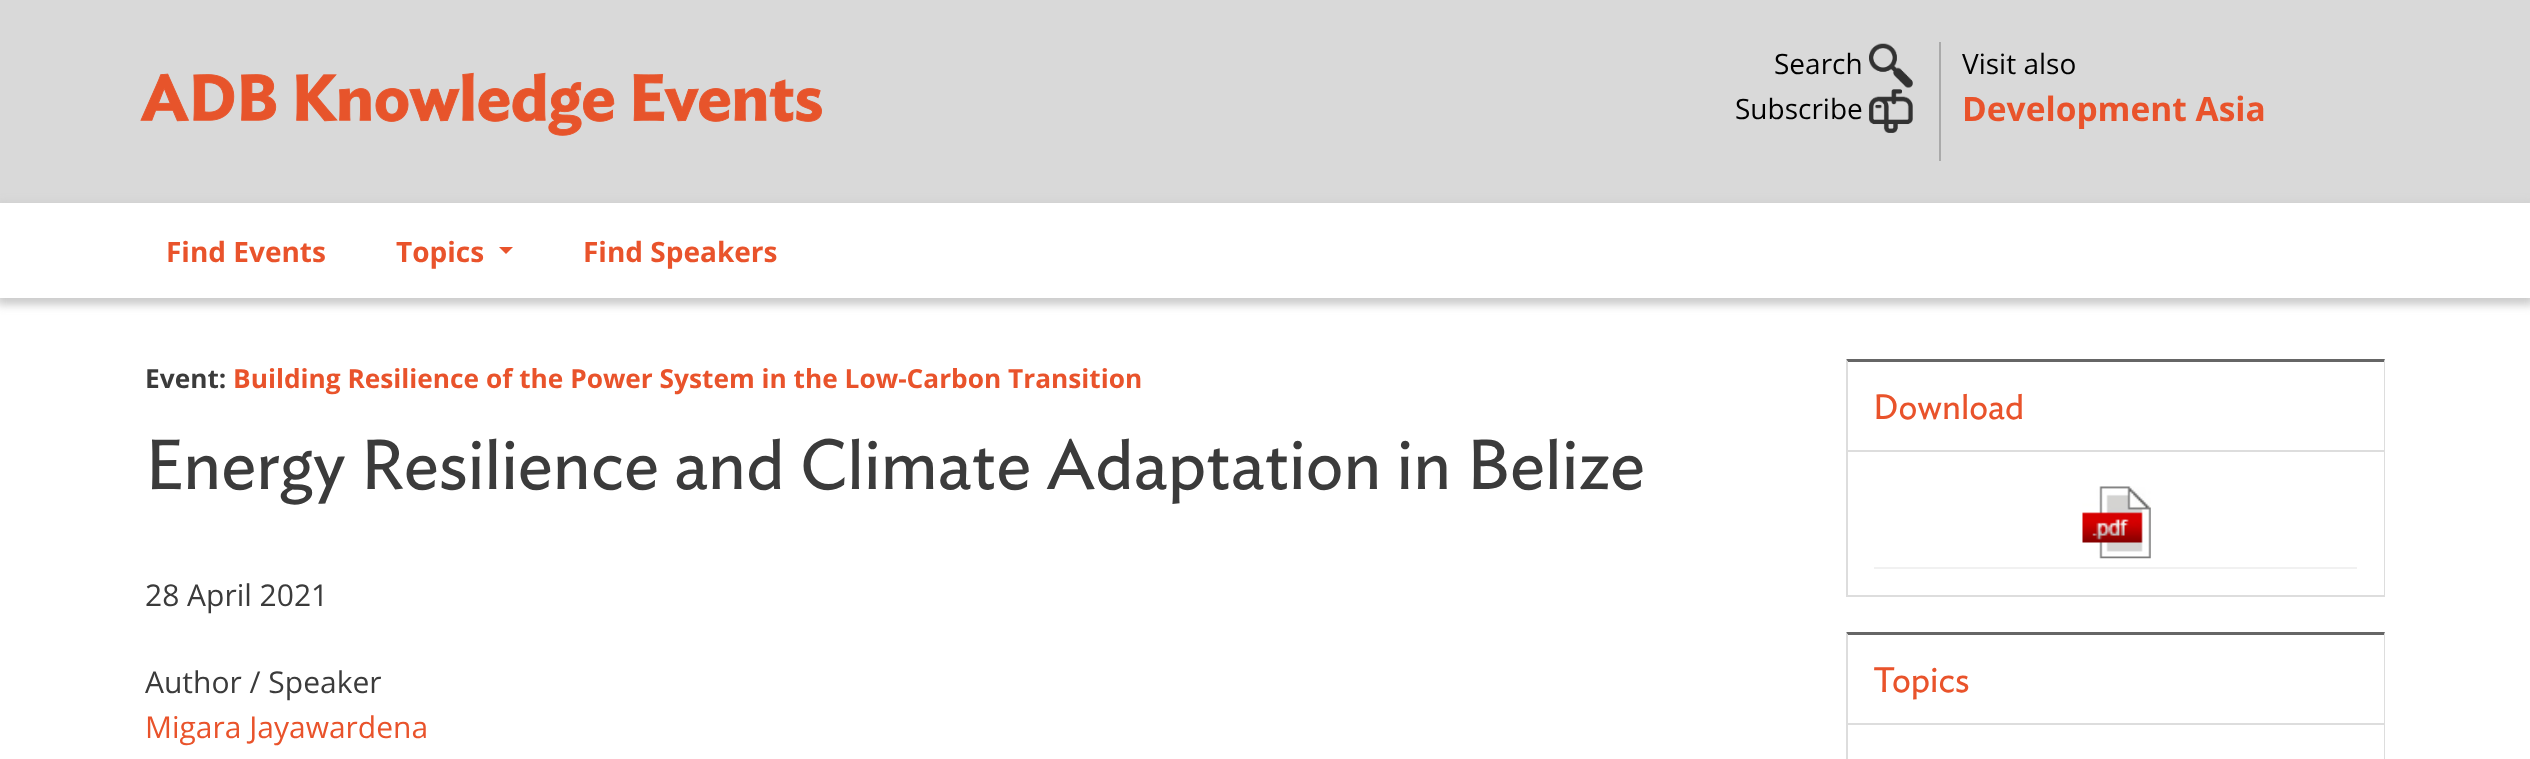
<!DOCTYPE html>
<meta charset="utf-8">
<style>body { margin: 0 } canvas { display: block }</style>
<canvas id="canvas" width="2530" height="759"></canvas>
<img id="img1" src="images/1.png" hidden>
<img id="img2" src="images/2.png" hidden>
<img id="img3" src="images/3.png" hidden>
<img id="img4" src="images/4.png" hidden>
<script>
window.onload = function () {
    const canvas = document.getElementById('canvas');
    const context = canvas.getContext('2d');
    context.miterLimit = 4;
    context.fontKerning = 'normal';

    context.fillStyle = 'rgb(255, 255, 255)';
    context.fillRect(0, 0, 2530, 759);
    context.fillStyle = 'rgb(217, 217, 217)';
    context.fillRect(0, 0, 2530, 203);
    context.drawImage(document.getElementById('img1'), 140, 72, 682, 64);
    context.fillStyle = 'rgb(170, 170, 170)';
    context.fillRect(1939, 42, 2, 119);
    context.drawImage(document.getElementById('img2'), 1869, 43, 44, 45);
    context.drawImage(document.getElementById('img3'), 1869, 89, 44, 44);
    context.fillStyle = 'rgb(204, 204, 204)';
    context.filter = 'blur(4.5px)';
    context.beginPath();
    context.rect(-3, 203, 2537, 102);
    context.fill();
    context.filter = 'none';
    context.fillStyle = 'rgb(255, 255, 255)';
    context.fillRect(0, 203, 2530, 95);
    context.fillStyle = 'rgb(233, 83, 43)';
    context.beginPath();
    context.moveTo(499, 247);
    context.lineTo(513, 247);
    context.lineTo(506, 254);
    context.closePath();
    context.fill();
    context.fillStyle = 'rgb(102, 102, 102)';
    context.beginPath();
    context.moveTo(1846, 359);
    context.lineTo(2385, 359);
    context.lineTo(2384, 362);
    context.lineTo(1848, 362);
    context.closePath();
    context.fill();
    context.fillStyle = 'rgb(221, 221, 221)';
    context.beginPath();
    context.moveTo(2385, 359);
    context.lineTo(2385, 597);
    context.lineTo(2384, 595);
    context.lineTo(2384, 362);
    context.closePath();
    context.fill();
    context.fillRect(1846, 595, 539, 2);
    context.beginPath();
    context.moveTo(1846, 597);
    context.lineTo(1846, 359);
    context.lineTo(1848, 362);
    context.lineTo(1848, 595);
    context.closePath();
    context.fill();
    context.fillRect(1848, 450, 536, 2);
    context.fillStyle = 'rgb(241, 241, 241)';
    context.fillRect(1874, 567, 483, 2);
    context.drawImage(document.getElementById('img4'), 2082, 486, 69, 73);
    context.fillStyle = 'rgb(102, 102, 102)';
    context.beginPath();
    context.moveTo(1846, 632);
    context.lineTo(2385, 632);
    context.lineTo(2384, 635);
    context.lineTo(1848, 635);
    context.closePath();
    context.fill();
    context.fillStyle = 'rgb(221, 221, 221)';
    context.beginPath();
    context.moveTo(2385, 632);
    context.lineTo(2385, 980);
    context.lineTo(2384, 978);
    context.lineTo(2384, 635);
    context.closePath();
    context.fill();
    context.beginPath();
    context.moveTo(1846, 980);
    context.lineTo(1846, 632);
    context.lineTo(1848, 635);
    context.lineTo(1848, 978);
    context.closePath();
    context.fill();
    context.fillRect(1848, 723, 536, 2);
    context.font = '28px Open Sans';
    context.fillStyle = 'rgb(0, 0, 0)';
    context.fillText('Search', 1774, 74);
    context.fillText('Subscribe', 1735, 119);
    context.fillText('Visit also', 1962, 74);
    context.font = 'bold 33.5px Open Sans';
    context.fillStyle = 'rgb(233, 83, 43)';
    context.fillText('Development Asia', 1962, 121);
    context.font = 'bold 28px Open Sans';
    context.fillText('Find Events', 166, 262);
    context.fillText('Topics', 396, 262);
    context.fillText('Find Speakers', 583, 262);
    context.font = 'bold 26.25px Open Sans';
    context.fillStyle = 'rgb(59, 59, 59)';
    context.fillText('Event:', 145, 388);
    context.fillStyle = 'rgb(233, 83, 43)';
    context.fillText('Building Resilience of the Power System in the Low-Carbon Transition', 233, 388);
    context.font = '70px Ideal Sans';
    context.fillStyle = 'rgb(59, 59, 59)';
    context.fillText('Energy Resilience and Climate Adaptation in Belize', 145, 489);
    context.font = '30px Open Sans';
    context.fillText('28 April 2021', 145, 606);
    context.fillText('Author / Speaker', 145, 693);
    context.fillStyle = 'rgb(233, 83, 43)';
    context.fillText('Migara Jayawardena', 145, 738);
    context.font = '35px Ideal Sans';
    context.fillText('Download', 1873, 419);
    context.fillText('Topics', 1873, 692);
};
</script>
